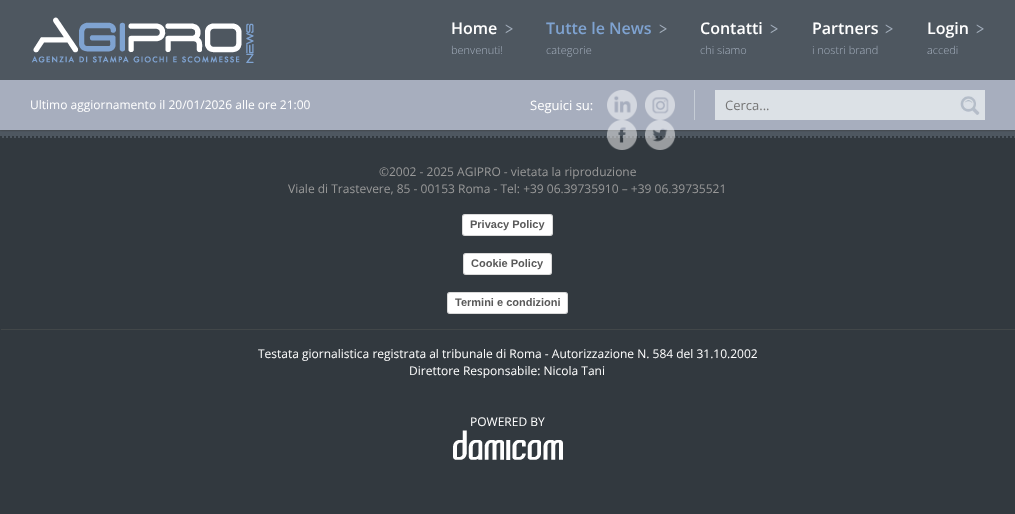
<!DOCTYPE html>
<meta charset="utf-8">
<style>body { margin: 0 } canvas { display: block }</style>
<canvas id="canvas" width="1015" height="514"></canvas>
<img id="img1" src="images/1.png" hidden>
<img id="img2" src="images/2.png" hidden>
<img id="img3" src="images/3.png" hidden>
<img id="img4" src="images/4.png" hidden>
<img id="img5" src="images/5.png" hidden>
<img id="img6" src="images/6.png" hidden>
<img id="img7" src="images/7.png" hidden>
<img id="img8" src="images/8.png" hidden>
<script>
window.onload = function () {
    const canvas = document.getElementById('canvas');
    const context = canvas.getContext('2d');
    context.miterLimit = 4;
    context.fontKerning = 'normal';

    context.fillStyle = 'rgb(78, 87, 96)';
    context.fillRect(0, 0, 1015, 514);
    context.fillStyle = 'rgb(51, 51, 51)';
    context.filter = 'blur(1px)';
    context.beginPath();
    context.rect(0, 80, 1015, 50);
    context.fill();
    context.filter = 'none';
    context.fillStyle = 'rgb(78, 87, 96)';
    context.fillRect(0, 78, 1015, 2);
    context.drawImage(document.getElementById('img1'), 31, 17, 223, 46);
    context.drawImage(document.getElementById('img2'), 505, 24, 8, 10);
    context.drawImage(document.getElementById('img2'), 659, 24, 8, 10);
    context.drawImage(document.getElementById('img2'), 770, 24, 8, 10);
    context.drawImage(document.getElementById('img2'), 885, 24, 8, 10);
    context.drawImage(document.getElementById('img2'), 976, 24, 8, 10);
    context.fillStyle = 'rgb(167, 174, 190)';
    context.fillRect(0, 80, 1015, 50);
    context.fillStyle = 'rgb(197, 204, 213)';
    context.fillRect(694, 90, 1, 30);
    context.drawImage(document.getElementById('img3'), 607, 90, 30, 30);
    context.drawImage(document.getElementById('img4'), 645, 90, 30, 30);
    context.beginPath();
    context.moveTo(0, 137);
    context.lineTo(1015, 137);
    context.strokeStyle = 'rgb(50, 57, 63)';
    context.lineWidth = 2;
    context.setLineDash([2, 2]);
    context.stroke();
    context.fillStyle = 'rgb(50, 57, 63)';
    context.fillRect(0, 138, 1015, 376);
    context.drawImage(document.getElementById('img5'), 607, 120, 30, 30);
    context.drawImage(document.getElementById('img6'), 645, 120, 30, 30);
    context.fillStyle = 'rgb(220, 225, 230)';
    context.fillRect(715, 90, 270, 30);
    context.drawImage(document.getElementById('img7'), 960, 96, 20, 19);
    context.fillStyle = 'rgb(66, 71, 73)';
    context.fillRect(1, 329, 1014, 1);
    context.fillStyle = 'rgb(255, 255, 255)';
    context.beginPath();
    context.roundRect(462, 214, 91, 22, 3);
    context.fill();
    context.beginPath();
    context.roundRect(462.5, 214.5, 90, 21, 2.5);
    context.strokeStyle = 'rgba(0, 0, 0, 0.15)';
    context.lineWidth = 1;
    context.setLineDash([]);
    context.stroke();
    context.beginPath();
    context.roundRect(463, 253, 89, 22, 3);
    context.fill();
    context.beginPath();
    context.roundRect(463.5, 253.5, 88, 21, 2.5);
    context.stroke();
    context.beginPath();
    context.roundRect(447, 292, 121, 22, 3);
    context.fill();
    context.beginPath();
    context.roundRect(447.5, 292.5, 120, 21, 2.5);
    context.stroke();
    context.drawImage(document.getElementById('img8'), 453, 430, 110, 30);
    context.font = '600 16px Open Sans';
    context.fillText('Home', 451, 34);
    context.font = '300 11px Open Sans';
    context.fillStyle = 'rgb(164, 175, 189)';
    context.fillText('benvenuti!', 451, 54);
    context.font = '600 16px Open Sans';
    context.fillStyle = 'rgb(127, 163, 209)';
    context.fillText('Tutte le News', 546, 34);
    context.font = '300 11px Open Sans';
    context.fillStyle = 'rgb(164, 175, 189)';
    context.fillText('categorie', 546, 54);
    context.font = '600 16px Open Sans';
    context.fillStyle = 'rgb(255, 255, 255)';
    context.fillText('Contatti', 700, 34);
    context.font = '300 11px Open Sans';
    context.fillStyle = 'rgb(164, 175, 189)';
    context.fillText('chi siamo', 700, 54);
    context.font = '600 16px Open Sans';
    context.fillStyle = 'rgb(255, 255, 255)';
    context.fillText('Partners', 812, 34);
    context.font = '300 11px Open Sans';
    context.fillStyle = 'rgb(164, 175, 189)';
    context.fillText('i nostri brand', 812, 54);
    context.font = '600 16px Open Sans';
    context.fillStyle = 'rgb(255, 255, 255)';
    context.fillText('Login', 927, 34);
    context.font = '300 11px Open Sans';
    context.fillStyle = 'rgb(164, 175, 189)';
    context.fillText('accedi', 927, 54);
    context.font = '12px Open Sans';
    context.fillStyle = 'rgb(255, 255, 255)';
    context.fillText('Ultimo aggiornamento il 20/01/2026 alle ore 21:00', 30, 109);
    context.font = '13px Open Sans';
    context.fillText('Seguici su:', 530, 110);
    context.fillStyle = 'rgb(117, 117, 117)';
    context.fillText('Cerca...', 725, 110);
    context.font = '12px Open Sans';
    context.fillStyle = 'rgb(153, 153, 153)';
    context.fillText('©2002 - 2025 AGIPRO - vietata la riproduzione', 379, 176);
    context.fillText('Viale di Trastevere, 85 - 00153 Roma - Tel: +39 06.39735910 – +39 06.39735521', 288, 193);
    context.font = 'bold 11px Liberation Sans';
    context.fillStyle = 'rgb(89, 89, 89)';
    context.fillText('Privacy Policy', 470, 228);
    context.fillText('Cookie Policy', 471, 267);
    context.fillText('Termini e condizioni', 455, 306);
    context.font = '12px Open Sans';
    context.fillStyle = 'rgb(255, 255, 255)';
    context.fillText('Testata giornalistica registrata al tribunale di Roma - Autorizzazione N. 584 del 31.10.2002', 258, 358);
    context.fillText('Direttore Responsabile: Nicola Tani', 409, 375);
    context.fillText('POWERED BY', 470, 426);
};
</script>
